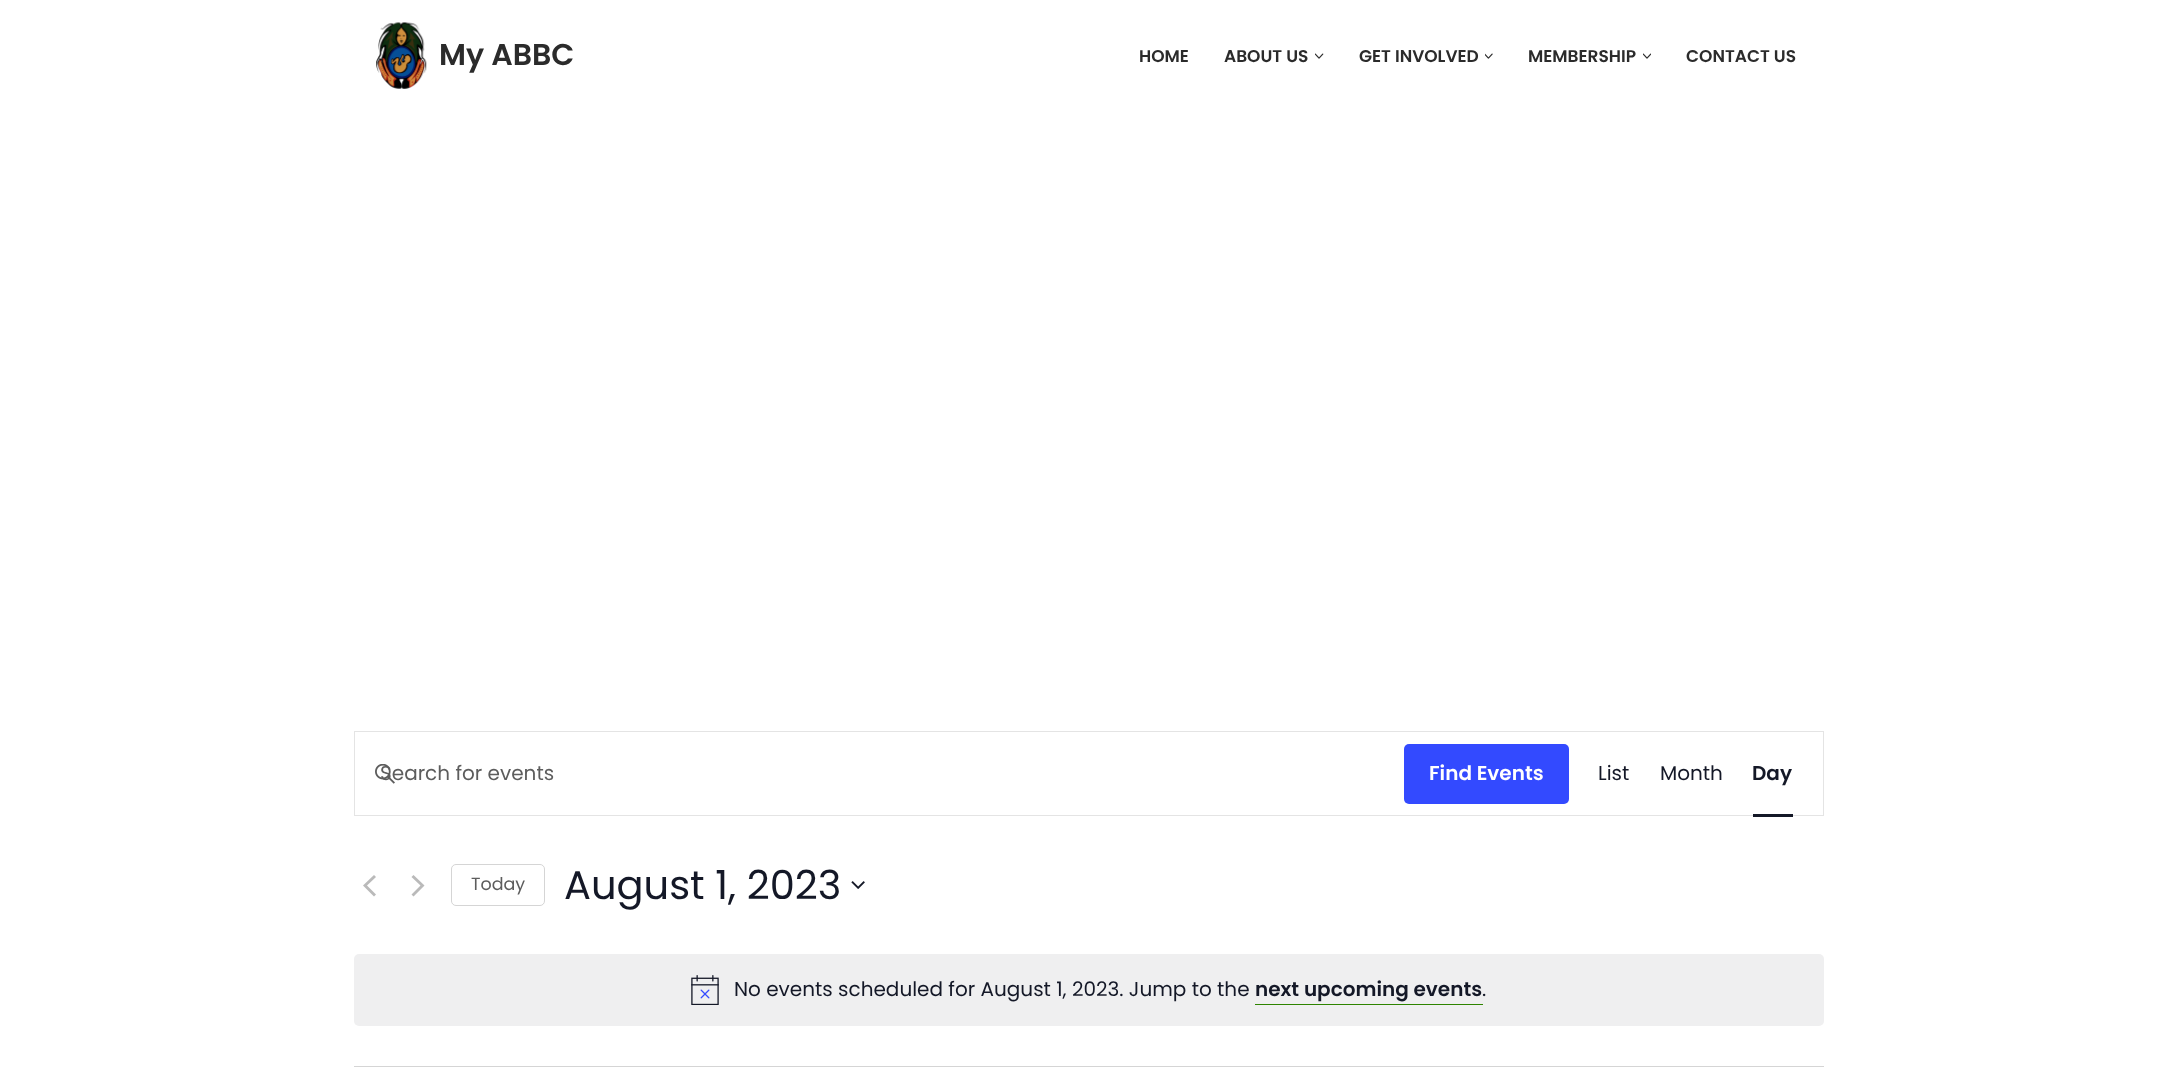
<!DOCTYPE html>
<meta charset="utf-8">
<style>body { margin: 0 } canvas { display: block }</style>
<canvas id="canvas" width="2177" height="1079"></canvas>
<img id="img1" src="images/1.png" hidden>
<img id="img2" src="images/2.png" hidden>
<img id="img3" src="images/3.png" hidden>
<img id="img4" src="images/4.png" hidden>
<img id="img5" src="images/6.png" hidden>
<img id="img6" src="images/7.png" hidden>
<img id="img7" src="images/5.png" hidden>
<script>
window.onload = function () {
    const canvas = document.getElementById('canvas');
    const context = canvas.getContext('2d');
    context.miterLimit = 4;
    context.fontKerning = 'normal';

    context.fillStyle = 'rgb(255, 255, 255)';
    context.fillRect(0, 0, 2177, 1079);
    context.drawImage(document.getElementById('img1'), 376, 22, 51, 67);
    context.drawImage(document.getElementById('img2'), 1315, 53, 9, 6);
    context.drawImage(document.getElementById('img3'), 1485, 53, 8, 6);
    context.drawImage(document.getElementById('img4'), 1643, 53, 8, 6);
    context.strokeStyle = 'rgb(228, 228, 228)';
    context.strokeRect(354.5, 731.5, 1469, 84);
    context.fillStyle = 'rgb(51, 74, 255)';
    context.beginPath();
    context.roundRect(1404, 744, 165, 60, 5);
    context.fill();
    context.fillStyle = 'rgb(20, 24, 39)';
    context.fillRect(1753, 814, 40, 3);
    context.fillStyle = 'rgb(186, 186, 186)';
    context.beginPath();
    context.moveTo(376, 894.5);
    context.lineTo(374, 896.5);
    context.lineTo(363, 885.5);
    context.lineTo(374, 875);
    context.lineTo(376, 877);
    context.lineTo(367, 885.5);
    context.closePath();
    context.moveTo(411.5, 877);
    context.lineTo(413.5, 875);
    context.lineTo(424.5, 885.5);
    context.lineTo(413.5, 896.5);
    context.lineTo(411.5, 894.5);
    context.lineTo(420.5, 885.5);
    context.closePath();
    context.fill();
    context.beginPath();
    context.roundRect(451.5, 864.5, 93, 41, 4.5);
    context.strokeStyle = 'rgb(213, 213, 213)';
    context.stroke();
    context.drawImage(document.getElementById('img5'), 851, 881, 14, 8);
    context.fillStyle = 'rgb(239, 239, 240)';
    context.beginPath();
    context.roundRect(354, 954, 1470, 72, 5);
    context.fill();
    context.drawImage(document.getElementById('img6'), 691, 975, 28, 30);
    context.fillStyle = 'rgb(46, 132, 0)';
    context.fillRect(1255, 1004, 228, 1);
    context.fillStyle = 'rgb(213, 213, 213)';
    context.fillRect(354, 1066, 1470, 1);
    context.font = '600 30px Poppins';
    context.fillStyle = 'rgb(43, 43, 43)';
    context.fillText('My ABBC', 439, 65);
    context.font = '600 17px Poppins';
    context.fillText('HOME', 1139, 62);
    context.fillText('ABOUT US', 1224, 62);
    context.fillText('GET INVOLVED', 1359, 62);
    context.fillText('MEMBERSHIP', 1528, 62);
    context.fillText('CONTACT US', 1686, 62);
    context.font = '20px Poppins';
    context.fillStyle = 'rgb(93, 93, 93)';
    context.fillText('Search for events', 380, 780);
    context.drawImage(document.getElementById('img7'), 375, 764, 20, 20);
    context.font = '600 20px Poppins';
    context.fillStyle = 'rgb(255, 255, 255)';
    context.fillText('Find Events', 1429, 780);
    context.font = '20px Poppins';
    context.fillStyle = 'rgb(20, 24, 39)';
    context.fillText('List', 1598, 780);
    context.fillText('Month', 1660, 780);
    context.font = '600 20px Poppins';
    context.fillText('Day', 1752, 780);
    context.font = '17.5px Poppins';
    context.fillStyle = 'rgb(93, 93, 93)';
    context.fillText('Today', 471, 890);
    context.font = '40px Poppins';
    context.fillStyle = 'rgb(20, 24, 39)';
    context.fillText('August 1, 2023', 564, 899);
    context.font = '20px Poppins';
    context.fillText('No events scheduled for August 1, 2023. Jump to the', 734, 996);
    context.font = '600 20px Poppins';
    context.fillText('next upcoming events', 1255, 996);
    context.font = '20px Poppins';
    context.fillText('.', 1482, 996);
};
</script>
